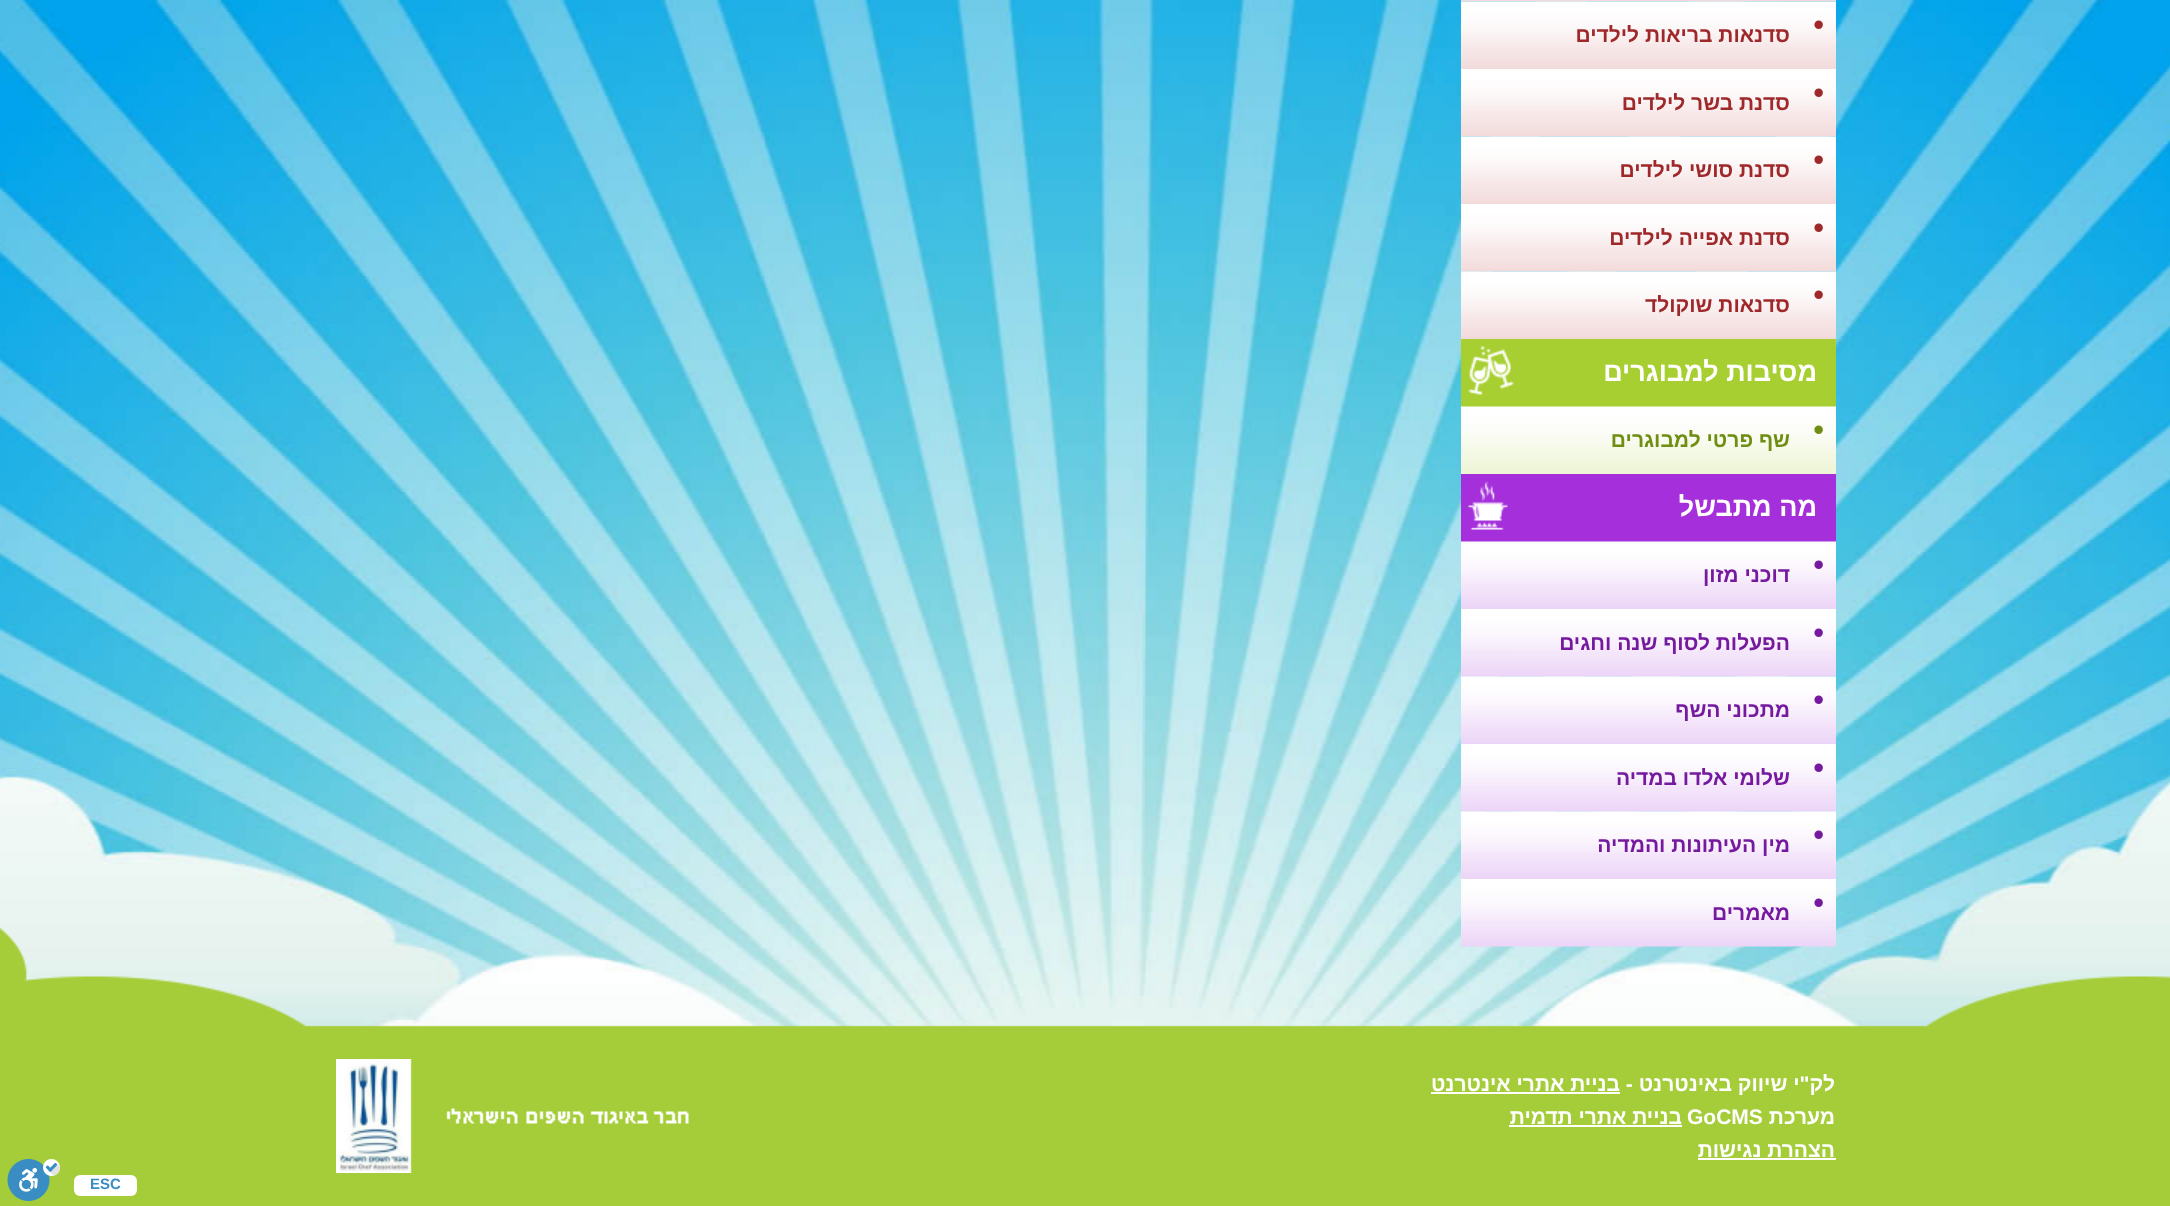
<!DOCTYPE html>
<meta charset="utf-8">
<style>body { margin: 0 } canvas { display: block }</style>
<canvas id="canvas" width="2170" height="1206"></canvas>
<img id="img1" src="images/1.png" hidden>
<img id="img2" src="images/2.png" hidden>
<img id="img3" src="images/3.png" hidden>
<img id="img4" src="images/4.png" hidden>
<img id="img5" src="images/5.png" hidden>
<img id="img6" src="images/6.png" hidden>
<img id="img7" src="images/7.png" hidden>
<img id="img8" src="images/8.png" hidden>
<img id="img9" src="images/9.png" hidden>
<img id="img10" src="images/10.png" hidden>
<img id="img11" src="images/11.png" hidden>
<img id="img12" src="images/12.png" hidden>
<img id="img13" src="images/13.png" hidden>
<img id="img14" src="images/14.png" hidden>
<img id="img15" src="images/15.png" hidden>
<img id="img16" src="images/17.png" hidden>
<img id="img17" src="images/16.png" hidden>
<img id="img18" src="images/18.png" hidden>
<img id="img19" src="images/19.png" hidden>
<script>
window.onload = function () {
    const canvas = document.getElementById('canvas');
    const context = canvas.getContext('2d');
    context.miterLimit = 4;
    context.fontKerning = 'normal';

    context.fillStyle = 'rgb(255, 255, 255)';
    context.fillRect(0, 0, 2170, 1206);
    context.drawImage(document.getElementById('img1'), 0, 0, 2170, 1027);
    context.drawImage(document.getElementById('img2'), 1461, 0, 375, 2);
    context.drawImage(document.getElementById('img3'), 1461, 1, 375, 68);
    context.drawImage(document.getElementById('img4'), 1461, 69, 375, 68);
    context.drawImage(document.getElementById('img5'), 1461, 136, 375, 68);
    context.drawImage(document.getElementById('img6'), 1461, 204, 375, 68);
    context.drawImage(document.getElementById('img7'), 1461, 271, 375, 68);
    context.fillStyle = 'rgb(167, 207, 49)';
    context.fillRect(1461, 339, 375, 68);
    context.drawImage(document.getElementById('img8'), 1468, 346, 46, 49);
    context.drawImage(document.getElementById('img9'), 1461, 406, 375, 68);
    context.fillStyle = 'rgb(165, 48, 219)';
    context.fillRect(1461, 474, 375, 68);
    context.drawImage(document.getElementById('img10'), 1468, 481, 40, 49);
    context.drawImage(document.getElementById('img11'), 1461, 541, 375, 68);
    context.drawImage(document.getElementById('img12'), 1461, 609, 375, 68);
    context.drawImage(document.getElementById('img13'), 1461, 676, 375, 68);
    context.drawImage(document.getElementById('img14'), 1461, 744, 375, 68);
    context.drawImage(document.getElementById('img15'), 1461, 811, 375, 68);
    context.drawImage(document.getElementById('img16'), 0, 927, 2170, 279);
    context.drawImage(document.getElementById('img17'), 1461, 879, 375, 68);
    context.fillStyle = 'rgb(255, 255, 255)';
    context.fillRect(1431, 1092, 189, 2);
    context.fillRect(1509, 1125, 173, 2);
    context.fillRect(1698, 1158, 138, 2);
    context.drawImage(document.getElementById('img18'), 336, 1059, 353, 114);
    context.beginPath();
    context.roundRect(74, 1175, 63, 21, 6);
    context.fill();
    context.drawImage(document.getElementById('img19'), 7, 1159, 54, 42);
    context.font = 'bold 52px Liberation Serif';
    context.fillStyle = 'rgb(159, 40, 42)';
    context.fillText('·', 1810, 42);
    context.direction = 'rtl';
    context.font = 'bold 21px Liberation Sans';
    context.fillText('סדנאות בריאות לילדים', 1790, 42);
    context.direction = 'ltr';
    context.font = 'bold 52px Liberation Serif';
    context.fillText('·', 1810, 110);
    context.direction = 'rtl';
    context.font = 'bold 21px Liberation Sans';
    context.fillText('סדנת בשר לילדים', 1790, 110);
    context.direction = 'ltr';
    context.font = 'bold 52px Liberation Serif';
    context.fillText('·', 1810, 177);
    context.direction = 'rtl';
    context.font = 'bold 21px Liberation Sans';
    context.fillText('סדנת סושי לילדים', 1790, 177);
    context.direction = 'ltr';
    context.font = 'bold 52px Liberation Serif';
    context.fillText('·', 1810, 245);
    context.direction = 'rtl';
    context.font = 'bold 21px Liberation Sans';
    context.fillText('סדנת אפייה לילדים', 1790, 245);
    context.direction = 'ltr';
    context.font = 'bold 52px Liberation Serif';
    context.fillText('·', 1810, 312);
    context.direction = 'rtl';
    context.font = 'bold 21px Liberation Sans';
    context.fillText('סדנאות שוקולד', 1790, 312);
    context.font = 'bold 27px Liberation Sans';
    context.fillStyle = 'rgb(255, 255, 255)';
    context.fillText('מסיבות למבוגרים', 1817, 381);
    context.direction = 'ltr';
    context.font = 'bold 52px Liberation Serif';
    context.fillStyle = 'rgb(111, 142, 18)';
    context.fillText('·', 1810, 447);
    context.direction = 'rtl';
    context.font = 'bold 21px Liberation Sans';
    context.fillText('שף פרטי למבוגרים', 1790, 447);
    context.font = 'bold 27px Liberation Sans';
    context.fillStyle = 'rgb(255, 255, 255)';
    context.fillText('מה מתבשל', 1817, 516);
    context.direction = 'ltr';
    context.font = 'bold 52px Liberation Serif';
    context.fillStyle = 'rgb(117, 25, 159)';
    context.fillText('·', 1810, 582);
    context.direction = 'rtl';
    context.font = 'bold 21px Liberation Sans';
    context.fillText('דוכני מזון', 1790, 582);
    context.direction = 'ltr';
    context.font = 'bold 52px Liberation Serif';
    context.fillText('·', 1810, 650);
    context.direction = 'rtl';
    context.font = 'bold 21px Liberation Sans';
    context.fillText('הפעלות לסוף שנה וחגים', 1790, 650);
    context.direction = 'ltr';
    context.font = 'bold 52px Liberation Serif';
    context.fillText('·', 1810, 717);
    context.direction = 'rtl';
    context.font = 'bold 21px Liberation Sans';
    context.fillText('מתכוני השף', 1790, 717);
    context.direction = 'ltr';
    context.font = 'bold 52px Liberation Serif';
    context.fillText('·', 1810, 785);
    context.direction = 'rtl';
    context.font = 'bold 21px Liberation Sans';
    context.fillText('שלומי אלדו במדיה', 1790, 785);
    context.direction = 'ltr';
    context.font = 'bold 52px Liberation Serif';
    context.fillText('·', 1810, 852);
    context.direction = 'rtl';
    context.font = 'bold 21px Liberation Sans';
    context.fillText('מין העיתונות והמדיה', 1790, 852);
    context.direction = 'ltr';
    context.font = 'bold 52px Liberation Serif';
    context.fillText('·', 1810, 920);
    context.direction = 'rtl';
    context.font = 'bold 21px Liberation Sans';
    context.fillText('מאמרים', 1790, 920);
    context.fillStyle = 'rgb(255, 255, 255)';
    context.fillText('לק"י שיווק באינטרנט -', 1835, 1091);
    context.fillText('בניית אתרי אינטרנט', 1620, 1091);
    context.fillText('מערכת', 1835, 1124);
    context.direction = 'ltr';
    context.fillText('GoCMS', 1687, 1124);
    context.direction = 'rtl';
    context.fillText('בניית אתרי תדמית', 1682, 1124);
    context.fillText('הצהרת נגישות', 1835, 1157);
    context.direction = 'ltr';
    context.font = 'bold 15px Liberation Sans';
    context.fillStyle = 'rgb(58, 141, 194)';
    context.fillText('ESC', 90, 1189);
};
</script>
